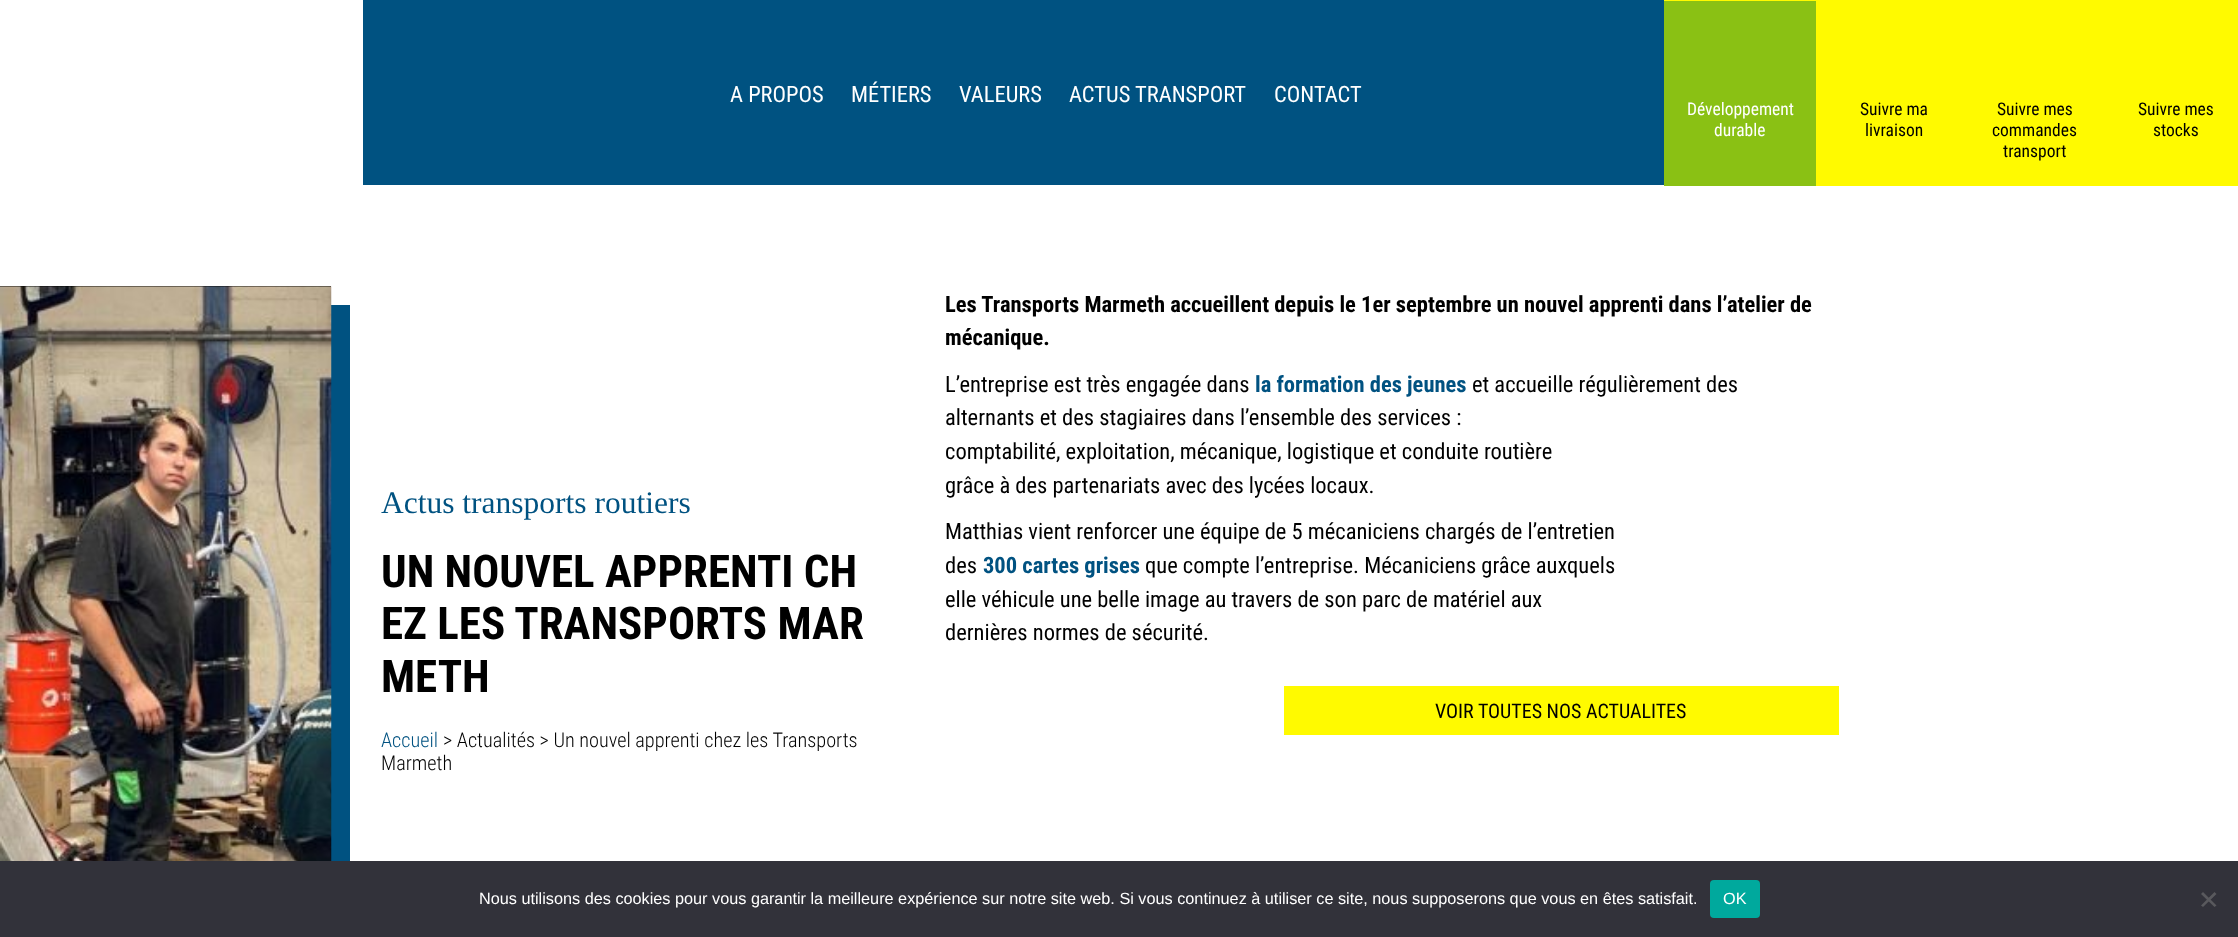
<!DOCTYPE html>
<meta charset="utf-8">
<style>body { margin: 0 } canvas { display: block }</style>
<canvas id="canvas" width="2238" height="937"></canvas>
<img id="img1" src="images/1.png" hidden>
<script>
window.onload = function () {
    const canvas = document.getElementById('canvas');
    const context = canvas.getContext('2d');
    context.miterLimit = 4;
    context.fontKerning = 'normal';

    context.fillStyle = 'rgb(255, 255, 255)';
    context.fillRect(0, 0, 2238, 937);
    context.fillStyle = 'rgb(0, 82, 129)';
    context.fillRect(363, 0, 1301, 185);
    context.fillStyle = 'rgb(255, 250, 0)';
    context.fillRect(1664, 0, 574, 186);
    context.fillStyle = 'rgb(138, 193, 20)';
    context.fillRect(1664, 1, 152, 185);
    context.fillStyle = 'rgb(0, 82, 129)';
    context.beginPath();
    context.moveTo(19, 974);
    context.lineTo(19, 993);
    context.lineTo(350, 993);
    context.lineTo(350, 305);
    context.lineTo(331, 305);
    context.lineTo(331, 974);
    context.closePath();
    context.fill();
    context.fillStyle = 'rgb(0, 0, 0)';
    context.fillRect(0, 286, 331, 1);
    context.drawImage(document.getElementById('img1'), 0, 286, 332, 575);
    context.fillStyle = 'rgb(255, 250, 0)';
    context.fillRect(1284, 686, 555, 49);
    context.fillStyle = 'rgb(50, 50, 58)';
    context.fillRect(0, 861, 2238, 76);
    context.fillStyle = 'rgb(0, 169, 157)';
    context.beginPath();
    context.roundRect(1710, 880, 50, 38, 4);
    context.fill();
    context.fillStyle = 'rgb(89, 89, 93)';
    context.beginPath();
    context.moveTo(2214.5, 892);
    context.lineTo(2216.5, 894);
    context.lineTo(2203, 907);
    context.lineTo(2201, 905.5);
    context.closePath();
    context.fill();
    context.beginPath();
    context.moveTo(2201, 894);
    context.lineTo(2203, 892);
    context.lineTo(2216.5, 905.5);
    context.lineTo(2214.5, 907);
    context.closePath();
    context.fill();
    context.font = '22.5px Roboto Condensed';
    context.fillStyle = 'rgb(255, 255, 255)';
    context.fillText('A PROPOS', 730, 102);
    context.fillText('MÉTIERS', 851, 102);
    context.fillText('VALEURS', 959, 102);
    context.fillText('ACTUS TRANSPORT', 1069, 102);
    context.fillText('CONTACT', 1274, 102);
    context.font = '17.5px Roboto Condensed';
    context.fillText('Développement', 1687, 115);
    context.fillText('durable', 1714, 136);
    context.fillStyle = 'rgb(0, 0, 0)';
    context.fillText('Suivre ma', 1860, 115);
    context.fillText('livraison', 1865, 136);
    context.fillText('Suivre mes', 1997, 115);
    context.fillText('commandes', 1992, 136);
    context.fillText('transport', 2003, 157);
    context.fillText('Suivre mes', 2138, 115);
    context.fillText('stocks', 2153, 136);
    context.font = '31.5px Liberation Serif';
    context.fillStyle = 'rgb(0, 82, 129)';
    context.fillText('Actus transports routiers', 381, 513);
    context.font = 'bold 45px Roboto Condensed';
    context.fillStyle = 'rgb(0, 0, 0)';
    context.fillText('UN NOUVEL APPRENTI CH', 381, 587);
    context.fillText('EZ LES TRANSPORTS MAR', 381, 639);
    context.fillText('METH', 381, 692);
    context.font = '300 20.25px Roboto Condensed';
    context.fillStyle = 'rgb(0, 82, 129)';
    context.fillText('Accueil', 381, 747);
    context.fillStyle = 'rgb(0, 0, 0)';
    context.fillText('> Actualités > Un nouvel apprenti chez les Transports', 443, 747);
    context.fillText('Marmeth', 381, 770);
    context.font = 'bold 22.5px Roboto Condensed';
    context.fillText('Les Transports Marmeth accueillent depuis le 1er septembre un nouvel apprenti dans l’atelier de', 945, 312);
    context.fillText('mécanique.', 945, 345);
    context.font = '22.5px Roboto Condensed';
    context.fillText('L’entreprise est très engagée dans', 945, 392);
    context.font = 'bold 22.5px Roboto Condensed';
    context.fillStyle = 'rgb(0, 82, 129)';
    context.fillText('la formation des jeunes', 1255, 392);
    context.font = '22.5px Roboto Condensed';
    context.fillStyle = 'rgb(0, 0, 0)';
    context.fillText('et accueille régulièrement des', 1472, 392);
    context.fillText('alternants et des stagiaires dans l’ensemble des services :', 945, 425);
    context.fillText('comptabilité, exploitation, mécanique, logistique et conduite routière', 945, 459);
    context.fillText('grâce à des partenariats avec des lycées locaux.', 945, 493);
    context.fillText('Matthias vient renforcer une équipe de 5 mécaniciens chargés de l’entretien', 945, 539);
    context.fillText('des', 945, 573);
    context.font = 'bold 22.5px Roboto Condensed';
    context.fillStyle = 'rgb(0, 82, 129)';
    context.fillText('300 cartes grises', 983, 573);
    context.font = '22.5px Roboto Condensed';
    context.fillStyle = 'rgb(0, 0, 0)';
    context.fillText('que compte l’entreprise. Mécaniciens grâce auxquels', 1145, 573);
    context.fillText('elle véhicule une belle image au travers de son parc de matériel aux', 945, 607);
    context.fillText('dernières normes de sécurité.', 945, 640);
    context.font = '20px Roboto Condensed';
    context.fillText('VOIR TOUTES NOS ACTUALITES', 1435, 718);
    context.font = '16.25px Liberation Sans';
    context.fillStyle = 'rgb(255, 255, 255)';
    context.fillText('Nous utilisons des cookies pour vous garantir la meilleure expérience sur notre site web. Si vous continuez à utiliser ce site, nous supposerons que vous en êtes satisfait.', 479, 904);
    context.fillText('OK', 1723, 904);
};
</script>
